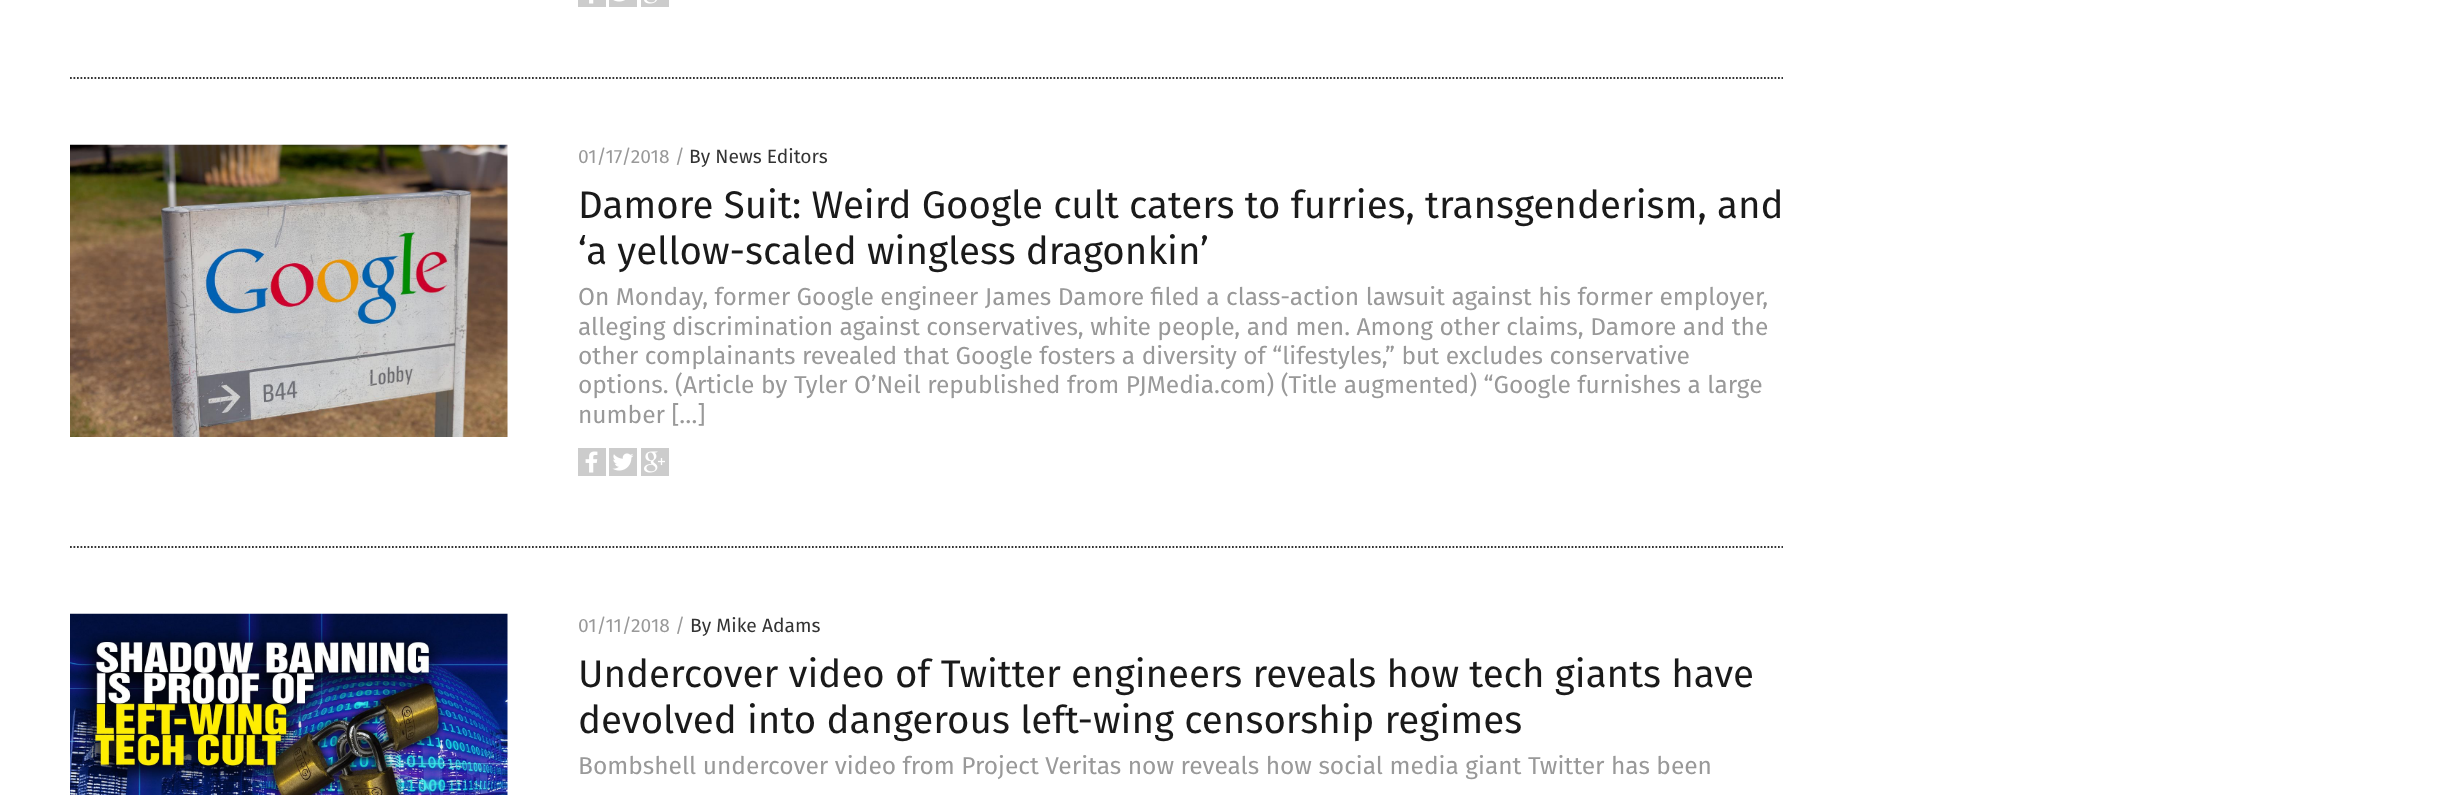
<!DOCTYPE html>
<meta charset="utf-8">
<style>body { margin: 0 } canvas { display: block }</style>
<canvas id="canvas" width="2447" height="795"></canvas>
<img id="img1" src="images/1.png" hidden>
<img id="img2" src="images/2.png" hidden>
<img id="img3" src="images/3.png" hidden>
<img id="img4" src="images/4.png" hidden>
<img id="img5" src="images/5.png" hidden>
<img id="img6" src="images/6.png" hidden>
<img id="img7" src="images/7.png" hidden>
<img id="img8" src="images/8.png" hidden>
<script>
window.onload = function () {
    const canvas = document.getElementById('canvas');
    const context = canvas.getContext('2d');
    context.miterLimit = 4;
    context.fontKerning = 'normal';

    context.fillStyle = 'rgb(255, 255, 255)';
    context.fillRect(0, 0, 2447, 795);
    context.beginPath();
    context.moveTo(70, 78);
    context.lineTo(1783, 78);
    context.strokeStyle = 'rgb(52, 52, 52)';
    context.lineWidth = 1.8;
    context.setLineDash([1.75, 1.75]);
    context.stroke();
    context.drawImage(document.getElementById('img1'), 578, 0, 28, 7);
    context.drawImage(document.getElementById('img2'), 609, 0, 28, 7);
    context.drawImage(document.getElementById('img3'), 641, 0, 28, 7);
    context.beginPath();
    context.moveTo(70, 547);
    context.lineTo(1783, 547);
    context.stroke();
    context.drawImage(document.getElementById('img4'), 70, 144, 438, 293);
    context.drawImage(document.getElementById('img5'), 578, 448, 28, 28);
    context.drawImage(document.getElementById('img6'), 609, 448, 28, 28);
    context.drawImage(document.getElementById('img7'), 641, 448, 28, 28);
    context.drawImage(document.getElementById('img8'), 70, 613, 438, 182);
    context.font = '19.25px Fira Sans';
    context.fillStyle = 'rgb(153, 153, 153)';
    context.fillText('01/17/2018 /', 578, 163);
    context.fillStyle = 'rgb(51, 51, 51)';
    context.fillText('By News Editors', 689, 163);
    context.font = '38.5px Fira Sans';
    context.fillStyle = 'rgb(26, 26, 26)';
    context.fillText('Damore Suit: Weird Google cult caters to furries, transgenderism, and', 578, 218);
    context.fillText('‘a yellow-scaled wingless dragonkin’', 578, 264);
    context.font = '24.5px Fira Sans';
    context.fillStyle = 'rgb(153, 153, 153)';
    context.fillText('On Monday, former Google engineer James Damore filed a class-action lawsuit against his former employer,', 578, 305);
    context.fillText('alleging discrimination against conservatives, white people, and men. Among other claims, Damore and the', 578, 335);
    context.fillText('other complainants revealed that Google fosters a diversity of “lifestyles,” but excludes conservative', 578, 364);
    context.fillText('options. (Article by Tyler O’Neil republished from PJMedia.com) (Title augmented) “Google furnishes a large', 578, 393);
    context.fillText('number […]', 578, 423);
    context.font = '19.25px Fira Sans';
    context.fillText('01/11/2018 /', 578, 632);
    context.fillStyle = 'rgb(51, 51, 51)';
    context.fillText('By Mike Adams', 690, 632);
    context.font = '38.5px Fira Sans';
    context.fillStyle = 'rgb(26, 26, 26)';
    context.fillText('Undercover video of Twitter engineers reveals how tech giants have', 578, 687);
    context.fillText('devolved into dangerous left-wing censorship regimes', 578, 733);
    context.font = '24.5px Fira Sans';
    context.fillStyle = 'rgb(153, 153, 153)';
    context.fillText('Bombshell undercover video from Project Veritas now reveals how social media giant Twitter has been', 578, 774);
};
</script>
